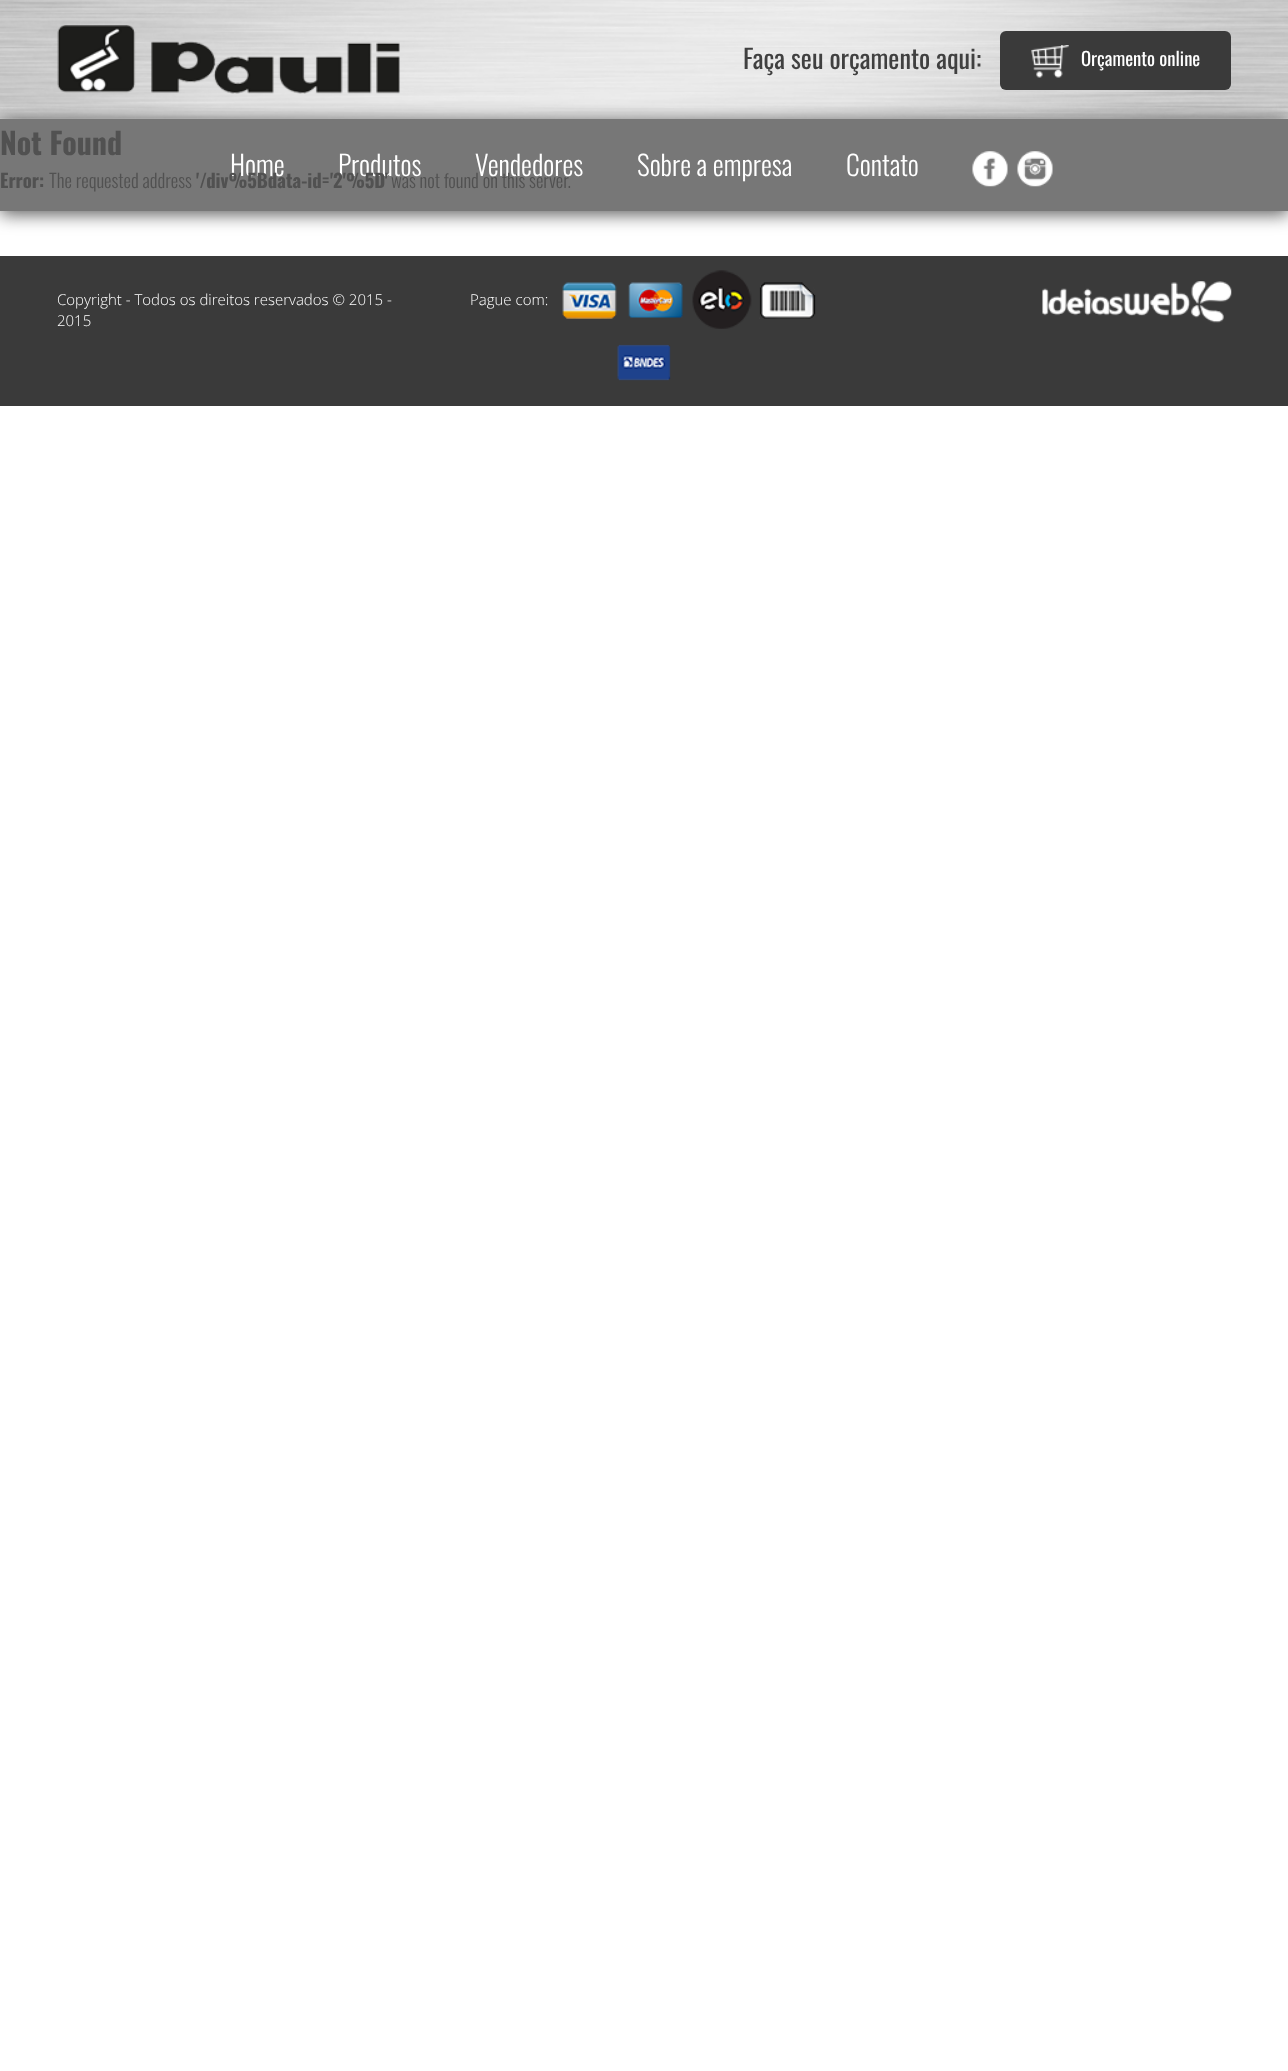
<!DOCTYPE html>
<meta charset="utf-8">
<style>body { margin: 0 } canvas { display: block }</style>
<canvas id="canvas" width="1288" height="2071"></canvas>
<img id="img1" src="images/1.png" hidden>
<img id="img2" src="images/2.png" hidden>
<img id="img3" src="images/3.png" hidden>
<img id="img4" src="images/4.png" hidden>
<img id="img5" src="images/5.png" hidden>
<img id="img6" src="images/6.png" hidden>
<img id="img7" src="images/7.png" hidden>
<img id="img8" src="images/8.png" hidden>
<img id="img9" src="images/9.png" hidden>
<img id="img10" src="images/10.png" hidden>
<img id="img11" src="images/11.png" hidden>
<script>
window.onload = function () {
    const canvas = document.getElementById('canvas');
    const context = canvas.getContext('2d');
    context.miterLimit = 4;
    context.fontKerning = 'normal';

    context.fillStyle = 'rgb(255, 255, 255)';
    context.fillRect(0, 0, 1288, 2071);
    context.fillStyle = 'rgb(119, 119, 119)';
    context.fillRect(0, 119, 1288, 92);
    context.drawImage(document.getElementById('img1'), 0, 0, 1288, 119);
    context.drawImage(document.getElementById('img2'), 57, 25, 343, 69);
    context.fillStyle = 'rgb(58, 58, 58)';
    context.beginPath();
    context.roundRect(1000, 31, 231, 59, 6);
    context.fill();
    context.drawImage(document.getElementById('img3'), 1031, 45, 38, 33);
    context.save();
    context.beginPath();
    context.moveTo(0, 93);
    context.lineTo(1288, 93);
    context.lineTo(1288, 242);
    context.lineTo(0, 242);
    context.closePath();
    context.moveTo(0, 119);
    context.lineTo(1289, 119);
    context.lineTo(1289, 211);
    context.lineTo(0, 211);
    context.closePath();
    context.clip('evenodd');
    context.fillStyle = 'rgb(85, 85, 85)';
    context.filter = 'blur(9px)';
    context.beginPath();
    context.rect(0, 121, 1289, 93);
    context.fill();
    context.filter = 'none';
    context.restore();
    context.drawImage(document.getElementById('img4'), 972, 151, 36, 36);
    context.drawImage(document.getElementById('img5'), 1017, 151, 36, 36);
    context.fillRect(0, 256, 1288, 150);
    context.drawImage(document.getElementById('img6'), 562, 282, 55, 37);
    context.drawImage(document.getElementById('img7'), 628, 282, 55, 36);
    context.drawImage(document.getElementById('img8'), 692, 270, 60, 59);
    context.drawImage(document.getElementById('img9'), 759, 282, 57, 37);
    context.drawImage(document.getElementById('img10'), 617, 344, 54, 37);
    context.drawImage(document.getElementById('img11'), 1042, 281, 190, 42);
    context.font = '26.25px Oswald';
    context.fillStyle = 'rgb(64, 64, 64)';
    context.fillText('Faça seu orçamento aqui:', 743, 69);
    context.font = '18.75px Oswald';
    context.fillStyle = 'rgb(255, 255, 255)';
    context.fillText('Orçamento online', 1081, 66);
    context.font = 'bold 30px Oswald';
    context.fillStyle = 'rgb(81, 81, 81)';
    context.fillText('Not Found', 0, 155);
    context.font = '300 27.5px Oswald';
    context.fillStyle = 'rgb(255, 255, 255)';
    context.fillText('Home', 230, 176);
    context.fillText('Produtos', 338, 176);
    context.fillText('Vendedores', 475, 176);
    context.fillText('Sobre a empresa', 637, 176);
    context.fillText('Contato', 846, 176);
    context.font = 'bold 18.75px Oswald';
    context.fillStyle = 'rgb(81, 81, 81)';
    context.fillText('Error:', 0, 188);
    context.font = '300 18.75px Oswald';
    context.fillText('The requested address', 49, 188);
    context.font = 'bold 18.75px Oswald';
    context.fillText('\'/div%5Bdata-id=\'2\'%5D\'', 196, 188);
    context.font = '300 18.75px Oswald';
    context.fillText('was not found on this server.', 391, 188);
    context.font = '300 15px Open Sans';
    context.fillStyle = 'rgb(255, 255, 255)';
    context.fillText('Copyright - Todos os direitos reservados © 2015 -', 57, 305);
    context.fillText('2015', 57, 326);
    context.fillText('Pague com:', 470, 305);
};
</script>
